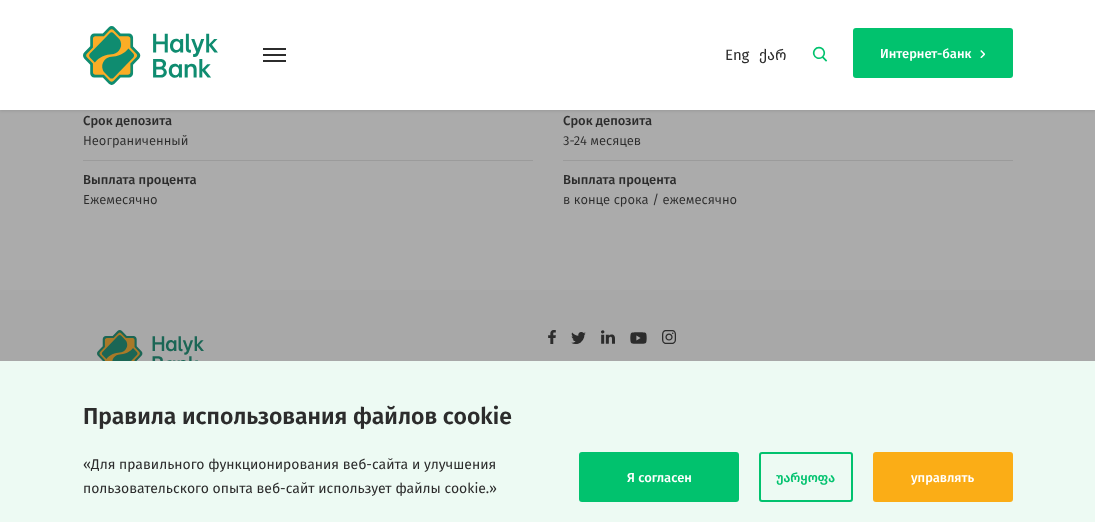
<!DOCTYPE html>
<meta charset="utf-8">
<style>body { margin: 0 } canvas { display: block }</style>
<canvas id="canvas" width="1095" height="522"></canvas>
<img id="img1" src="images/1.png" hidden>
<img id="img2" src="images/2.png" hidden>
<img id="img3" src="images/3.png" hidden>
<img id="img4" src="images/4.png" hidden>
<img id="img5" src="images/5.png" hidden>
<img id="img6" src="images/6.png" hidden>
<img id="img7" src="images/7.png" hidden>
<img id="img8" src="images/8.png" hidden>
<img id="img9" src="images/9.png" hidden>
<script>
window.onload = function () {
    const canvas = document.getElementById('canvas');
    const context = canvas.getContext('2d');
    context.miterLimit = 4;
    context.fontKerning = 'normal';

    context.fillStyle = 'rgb(171, 171, 171)';
    context.fillRect(0, 0, 1095, 522);
    context.fillStyle = 'rgba(0, 0, 0, 0.1)';
    context.filter = 'blur(1.5px)';
    context.beginPath();
    context.rect(0, 1, 1095, 110);
    context.fill();
    context.filter = 'none';
    context.fillStyle = 'rgb(255, 255, 255)';
    context.fillRect(0, 0, 1095, 110);
    context.drawImage(document.getElementById('img1'), 83, 26, 135, 59);
    context.fillStyle = 'rgb(44, 44, 44)';
    context.fillRect(263, 48, 23, 2);
    context.fillRect(263, 54, 23, 2);
    context.fillRect(263, 60, 23, 2);
    context.drawImage(document.getElementById('img2'), 812, 46, 16, 16);
    context.fillStyle = 'rgb(1, 194, 110)';
    context.beginPath();
    context.roundRect(853, 28, 160, 50, 3);
    context.fill();
    context.drawImage(document.getElementById('img3'), 980, 50, 5, 8);
    context.fillStyle = 'rgb(155, 155, 155)';
    context.fillRect(83, 160, 450, 1);
    context.fillRect(563, 160, 450, 1);
    context.fillStyle = 'rgb(168, 168, 168)';
    context.fillRect(0, 290, 1095, 71);
    context.drawImage(document.getElementById('img4'), 97, 330, 107, 31);
    context.drawImage(document.getElementById('img5'), 548, 330, 8, 14);
    context.drawImage(document.getElementById('img6'), 571, 332, 15, 12);
    context.drawImage(document.getElementById('img7'), 601, 330, 14, 14);
    context.drawImage(document.getElementById('img8'), 630, 332, 17, 12);
    context.drawImage(document.getElementById('img9'), 662, 330, 14, 14);
    context.fillStyle = 'rgb(237, 250, 243)';
    context.fillRect(0, 361, 1095, 161);
    context.fillStyle = 'rgb(1, 194, 110)';
    context.beginPath();
    context.roundRect(579, 452, 160, 50, 3);
    context.fill();
    context.beginPath();
    context.roundRect(760, 453, 92, 48, 2);
    context.strokeStyle = 'rgb(1, 194, 110)';
    context.lineWidth = 2;
    context.stroke();
    context.fillStyle = 'rgb(251, 173, 22)';
    context.beginPath();
    context.roundRect(873, 452, 140, 50, 3);
    context.fill();
    context.font = '15px "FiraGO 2"';
    context.fillStyle = 'rgb(44, 44, 44)';
    context.fillText('Eng', 725, 60);
    context.fillText('ქარ', 759, 60);
    context.font = '500 13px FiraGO';
    context.fillStyle = 'rgb(255, 255, 255)';
    context.fillText('Интернет-банк', 880, 58);
    context.fillStyle = 'rgb(44, 44, 44)';
    context.fillText('Срок депозита', 83, 125);
    context.font = '13px FiraGO';
    context.fillText('Неограниченный', 83, 145);
    context.font = '500 13px FiraGO';
    context.fillText('Выплата процента', 83, 184);
    context.font = '13px FiraGO';
    context.fillText('Ежемесячно', 83, 204);
    context.font = '500 13px FiraGO';
    context.fillText('Срок депозита', 563, 125);
    context.font = '13px FiraGO';
    context.fillText('3-24 месяцев', 563, 145);
    context.font = '500 13px FiraGO';
    context.fillText('Выплата процента', 563, 184);
    context.font = '13px FiraGO';
    context.fillText('в конце срока / ежемесячно', 563, 204);
    context.font = '600 23px FiraGO';
    context.fillText('Правила использования файлов cookie', 83, 424);
    context.font = '14px "FiraGO 2"';
    context.fillText('«Для правильного функционирования веб-сайта и улучшения', 83, 469);
    context.fillText('пользовательского опыта веб-сайт использует файлы cookie.»', 83, 493);
    context.font = '500 13px FiraGO';
    context.fillStyle = 'rgb(255, 255, 255)';
    context.fillText('Я согласен', 627, 482);
    context.fillStyle = 'rgb(1, 194, 110)';
    context.fillText('უარყოფა', 776, 482);
    context.fillStyle = 'rgb(255, 255, 255)';
    context.fillText('управлять', 911, 482);
};
</script>
